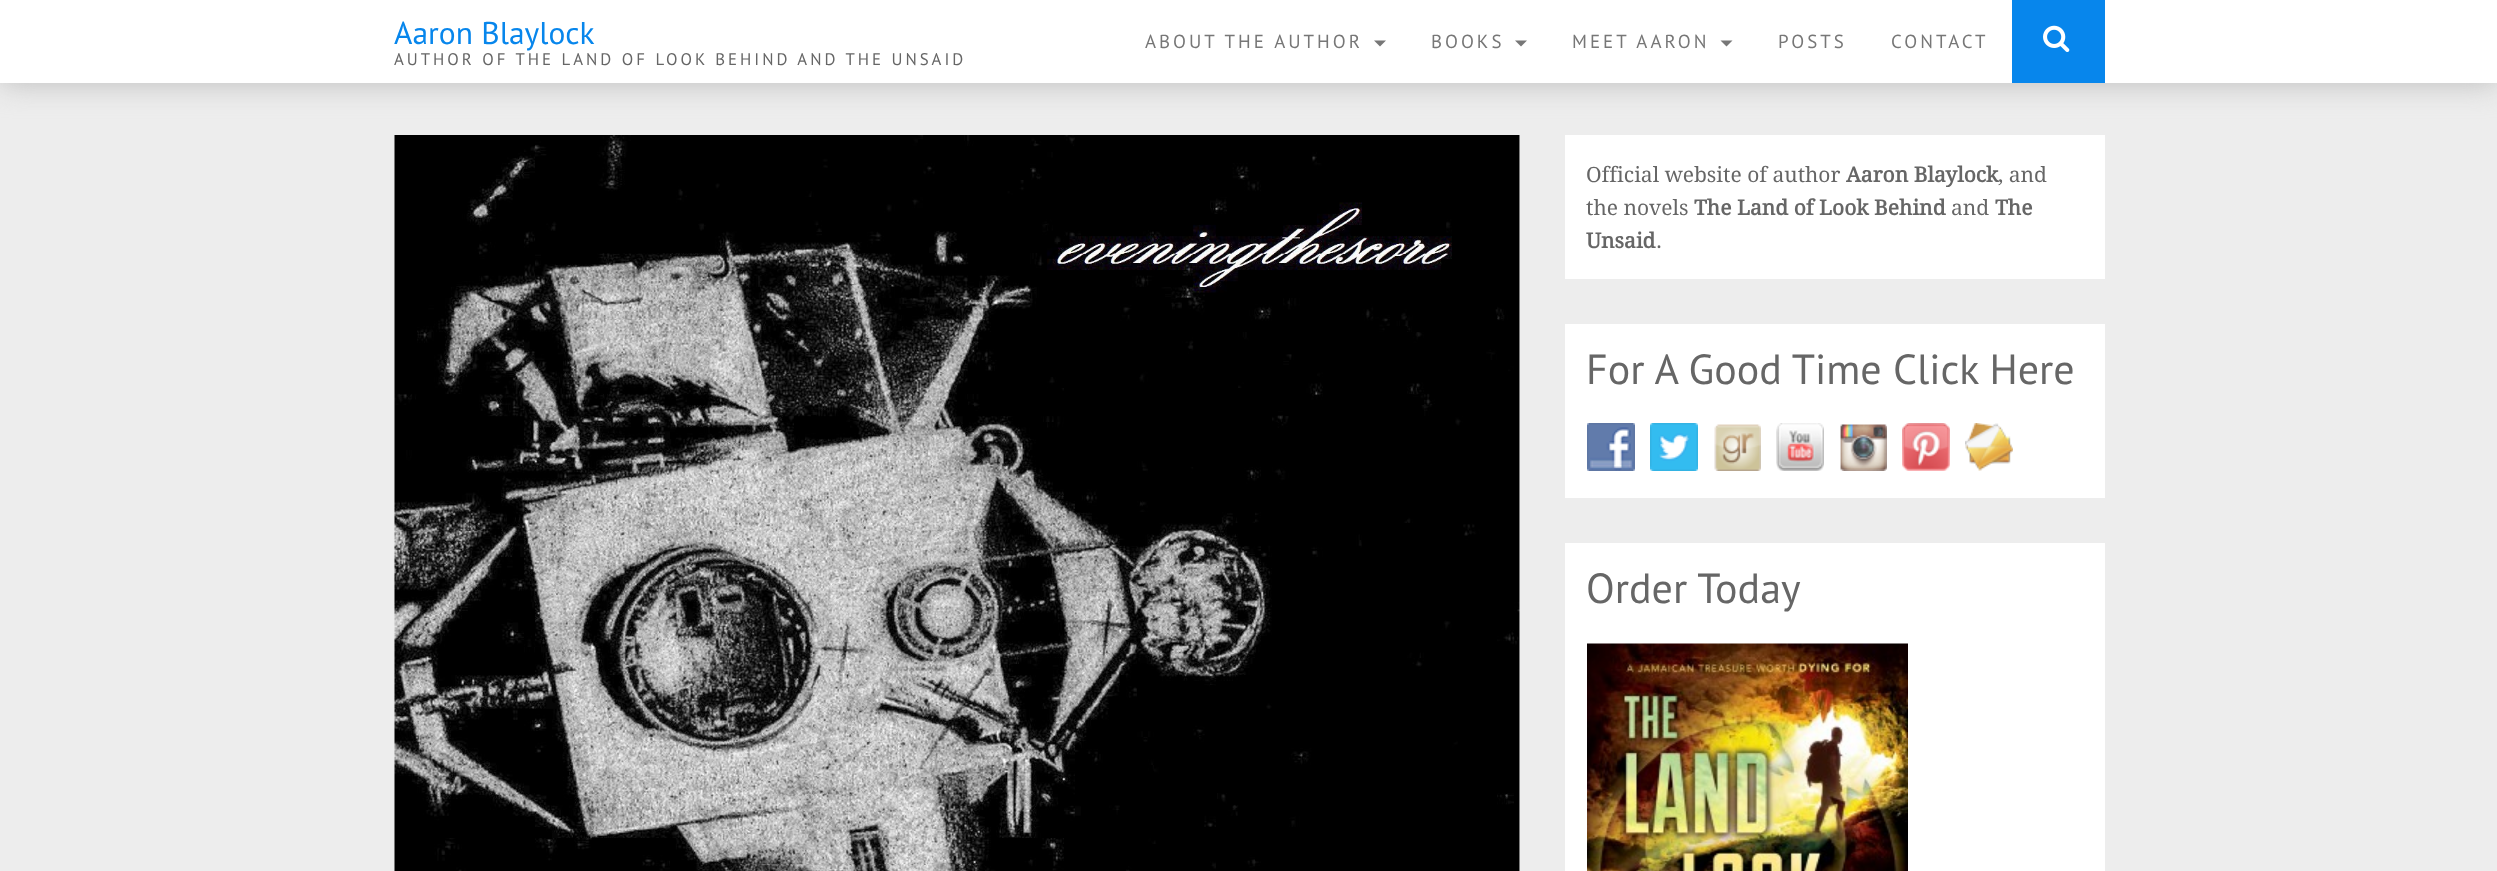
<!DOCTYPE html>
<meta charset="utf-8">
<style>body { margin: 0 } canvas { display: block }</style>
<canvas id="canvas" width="2497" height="871"></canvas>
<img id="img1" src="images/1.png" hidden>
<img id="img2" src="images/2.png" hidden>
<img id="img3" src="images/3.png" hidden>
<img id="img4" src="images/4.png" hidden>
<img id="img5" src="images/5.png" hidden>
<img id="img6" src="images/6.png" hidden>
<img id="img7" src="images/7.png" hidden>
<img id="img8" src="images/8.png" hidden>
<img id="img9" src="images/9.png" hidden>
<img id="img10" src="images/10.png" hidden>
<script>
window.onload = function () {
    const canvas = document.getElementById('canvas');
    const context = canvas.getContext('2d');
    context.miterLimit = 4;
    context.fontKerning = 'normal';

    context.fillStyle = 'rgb(237, 237, 237)';
    context.fillRect(0, 0, 2497, 871);
    context.fillStyle = 'rgb(187, 187, 187)';
    context.filter = 'blur(15px)';
    context.beginPath();
    context.rect(0, 0, 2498, 83);
    context.fill();
    context.filter = 'none';
    context.fillStyle = 'rgb(255, 255, 255)';
    context.fillRect(0, 0, 2497, 83);
    context.fillStyle = 'rgb(119, 119, 119)';
    context.beginPath();
    context.moveTo(1374, 40.5);
    context.lineTo(1386, 40.5);
    context.lineTo(1380, 46.5);
    context.closePath();
    context.fill();
    context.beginPath();
    context.moveTo(1515, 40.5);
    context.lineTo(1527, 40.5);
    context.lineTo(1521, 46.5);
    context.closePath();
    context.fill();
    context.beginPath();
    context.moveTo(1720.5, 40.5);
    context.lineTo(1732.5, 40.5);
    context.lineTo(1726.5, 46.5);
    context.closePath();
    context.fill();
    context.fillStyle = 'rgb(7, 134, 236)';
    context.fillRect(2012, 0, 93, 83);
    context.drawImage(document.getElementById('img1'), 2043, 25, 27, 27);
    context.fillStyle = 'rgb(255, 255, 255)';
    context.fillRect(1519, 135, 1, 736);
    context.drawImage(document.getElementById('img2'), 394, 135, 1126, 736);
    context.fillRect(1565, 135, 540, 144);
    context.fillRect(1565, 324, 540, 174);
    context.drawImage(document.getElementById('img3'), 1587, 423, 48, 48);
    context.drawImage(document.getElementById('img4'), 1650, 423, 48, 48);
    context.drawImage(document.getElementById('img5'), 1714, 424, 47, 47);
    context.drawImage(document.getElementById('img6'), 1776, 423, 48, 48);
    context.drawImage(document.getElementById('img7'), 1840, 424, 47, 47);
    context.drawImage(document.getElementById('img8'), 1902, 423, 48, 48);
    context.drawImage(document.getElementById('img9'), 1965, 423, 48, 48);
    context.fillRect(1565, 543, 540, 328);
    context.drawImage(document.getElementById('img10'), 1587, 643, 321, 228);
    context.font = '31.5px PT Sans';
    context.fillStyle = 'rgb(7, 134, 236)';
    context.fillText('Aaron Blaylock', 394, 44);
    context.letterSpacing = '3px';
    context.font = '16.8px PT Sans';
    context.fillStyle = 'rgb(102, 102, 102)';
    context.fillText('AUTHOR OF THE LAND OF LOOK BEHIND AND THE UNSAID', 394, 65);
    context.font = '18.9px PT Sans';
    context.fillStyle = 'rgb(119, 119, 119)';
    context.fillText('ABOUT THE AUTHOR', 1145, 48);
    context.fillText('BOOKS', 1431, 48);
    context.fillText('MEET AARON', 1572, 48);
    context.fillText('POSTS', 1778, 48);
    context.fillText('CONTACT', 1891, 48);
    context.letterSpacing = '0px';
    context.font = '21px Droid Serif';
    context.fillStyle = 'rgb(102, 102, 102)';
    context.fillText('Official website of author', 1586, 182);
    context.font = 'bold 21px Droid Serif';
    context.fillText('Aaron Blaylock', 1846, 182);
    context.font = '21px Droid Serif';
    context.fillText(', and', 1998, 182);
    context.fillText('the novels', 1586, 215);
    context.font = 'bold 21px Droid Serif';
    context.fillText('The Land of Look Behind', 1694, 215);
    context.font = '21px Droid Serif';
    context.fillText('and', 1951, 215);
    context.font = 'bold 21px Droid Serif';
    context.fillText('The', 1995, 215);
    context.fillText('Unsaid', 1586, 248);
    context.font = '21px Droid Serif';
    context.fillText('.', 1656, 248);
    context.font = '42px PT Sans';
    context.fillText('For A Good Time Click Here', 1586, 384);
    context.fillText('Order Today', 1586, 603);
};
</script>
